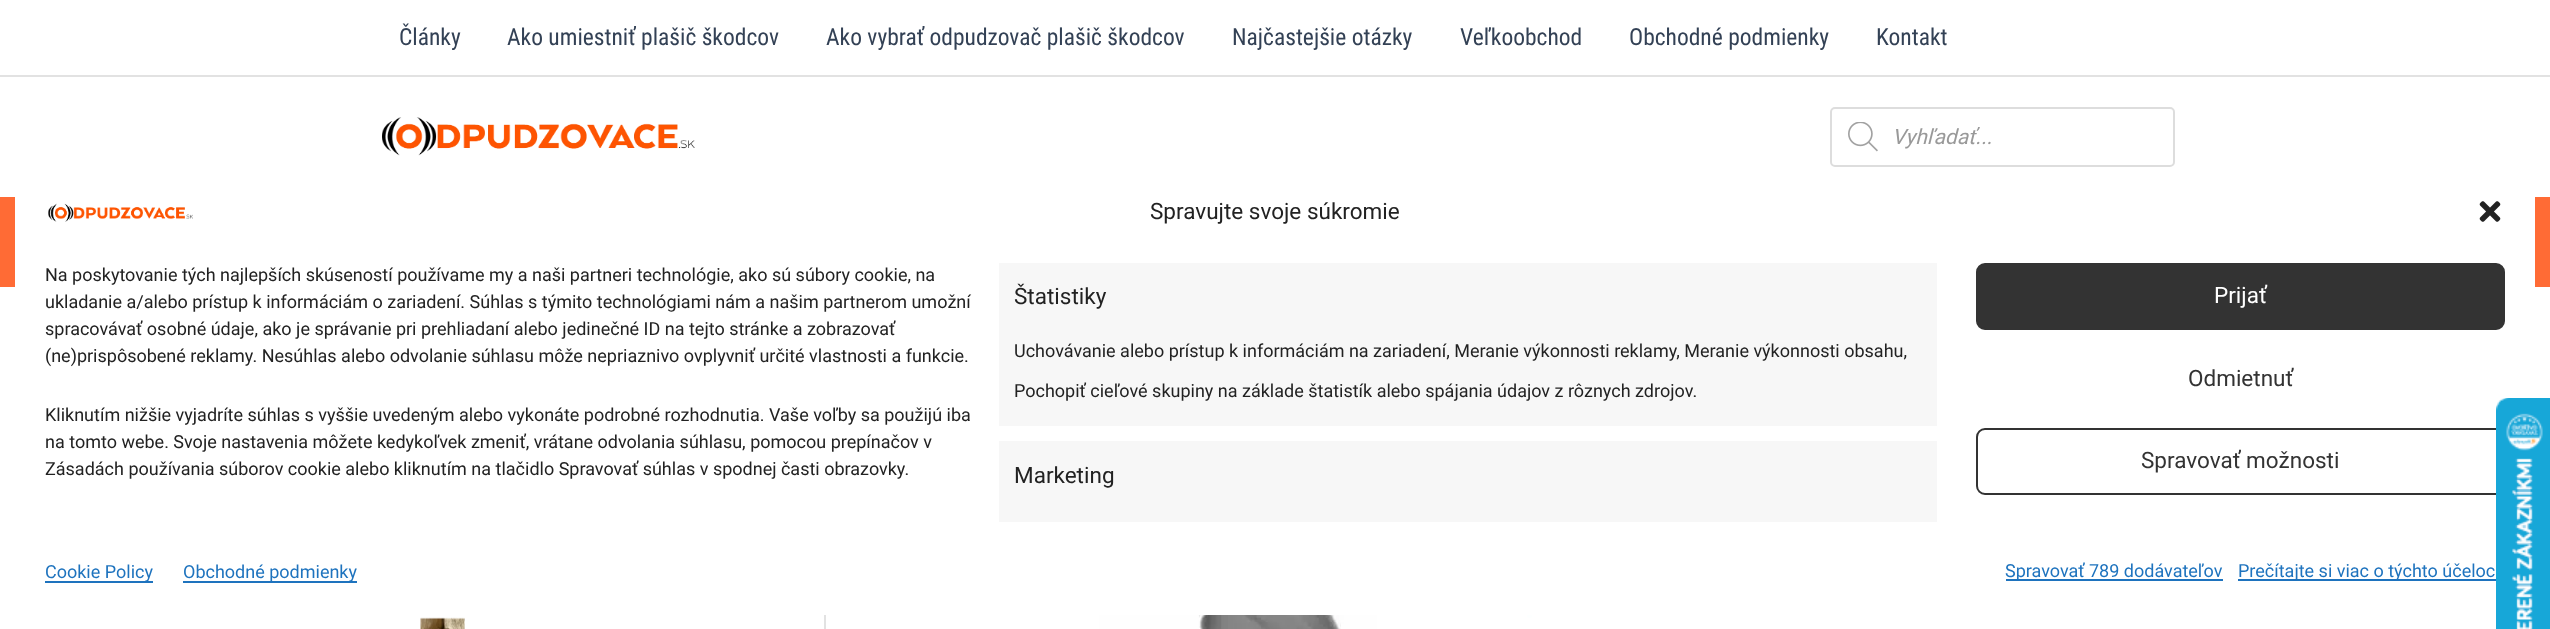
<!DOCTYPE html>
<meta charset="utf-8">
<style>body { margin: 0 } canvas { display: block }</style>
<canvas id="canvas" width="2550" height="629"></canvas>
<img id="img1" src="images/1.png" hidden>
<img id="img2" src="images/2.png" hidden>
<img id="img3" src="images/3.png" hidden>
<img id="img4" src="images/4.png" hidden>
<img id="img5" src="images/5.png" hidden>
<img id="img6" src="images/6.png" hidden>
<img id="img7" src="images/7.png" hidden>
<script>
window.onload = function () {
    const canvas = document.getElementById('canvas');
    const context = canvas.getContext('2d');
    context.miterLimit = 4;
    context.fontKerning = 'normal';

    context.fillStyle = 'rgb(255, 255, 255)';
    context.fillRect(0, 0, 2550, 629);
    context.fillStyle = 'rgb(226, 226, 226)';
    context.fillRect(0, 75, 2550, 2);
    context.drawImage(document.getElementById('img1'), 382, 117, 313, 39);
    context.beginPath();
    context.roundRect(1831, 108, 343, 58, 4);
    context.strokeStyle = 'rgb(221, 221, 221)';
    context.lineWidth = 2;
    context.stroke();
    context.drawImage(document.getElementById('img2'), 1848, 122, 30, 30);
    context.fillStyle = 'rgb(255, 107, 53)';
    context.fillRect(0, 197, 2550, 90);
    context.fillStyle = 'rgb(226, 226, 226)';
    context.fillRect(824, 615, 2, 14);
    context.drawImage(document.getElementById('img3'), 420, 617, 45, 12);
    context.drawImage(document.getElementById('img4'), 1099, 615, 433, 14);
    context.fillStyle = 'rgb(255, 255, 255)';
    context.beginPath();
    context.roundRect(15, 170, 2520, 445, 18);
    context.fill();
    context.drawImage(document.getElementById('img5'), 48, 203, 145, 19);
    context.drawImage(document.getElementById('img6'), 2479, 201, 22, 21);
    context.fillStyle = 'rgb(247, 247, 247)';
    context.fillRect(999, 263, 938, 163);
    context.fillRect(999, 441, 938, 81);
    context.fillStyle = 'rgb(51, 51, 51)';
    context.beginPath();
    context.roundRect(1977, 264, 527, 65, 8);
    context.fill();
    context.strokeStyle = 'rgb(51, 51, 51)';
    context.stroke();
    context.beginPath();
    context.roundRect(1977, 429, 527, 65, 8);
    context.stroke();
    context.fillStyle = 'rgb(30, 115, 190)';
    context.fillRect(45, 581, 108, 2);
    context.fillRect(183, 581, 174, 2);
    context.fillRect(2006, 579, 217, 2);
    context.fillRect(2238, 579, 258, 2);
    context.drawImage(document.getElementById('img7'), 2496, 398, 54, 231);
    context.font = '23.5px Roboto Condensed';
    context.fillStyle = 'rgb(51, 65, 85)';
    context.fillText('Články', 399, 45);
    context.fillText('Ako umiestniť plašič škodcov', 507, 45);
    context.fillText('Ako vybrať odpudzovač plašič škodcov', 826, 45);
    context.fillText('Najčastejšie otázky', 1232, 45);
    context.fillText('Veľkoobchod', 1460, 45);
    context.fillText('Obchodné podmienky', 1629, 45);
    context.fillText('Kontakt', 1876, 45);
    context.font = 'italic 21px Roboto';
    context.fillStyle = 'rgb(153, 153, 153)';
    context.fillText('Vyhľadať...', 1892, 144);
    context.font = '22.5px Roboto';
    context.fillStyle = 'rgb(34, 34, 34)';
    context.fillText('Spravujte svoje súkromie', 1150, 219);
    context.font = '18px Roboto';
    context.fillText('Na poskytovanie tých najlepších skúseností používame my a naši partneri technológie, ako sú súbory cookie, na', 45, 281);
    context.fillText('ukladanie a/alebo prístup k informáciám o zariadení. Súhlas s týmito technológiami nám a našim partnerom umožní', 45, 308);
    context.fillText('spracovávať osobné údaje, ako je správanie pri prehliadaní alebo jedinečné ID na tejto stránke a zobrazovať', 45, 335);
    context.fillText('(ne)prispôsobené reklamy. Nesúhlas alebo odvolanie súhlasu môže nepriaznivo ovplyvniť určité vlastnosti a funkcie.', 45, 362);
    context.fillText('Kliknutím nižšie vyjadríte súhlas s vyššie uvedeným alebo vykonáte podrobné rozhodnutia. Vaše voľby sa použijú iba', 45, 421);
    context.fillText('na tomto webe. Svoje nastavenia môžete kedykoľvek zmeniť, vrátane odvolania súhlasu, pomocou prepínačov v', 45, 448);
    context.fillText('Zásadách používania súborov cookie alebo kliknutím na tlačidlo Spravovať súhlas v spodnej časti obrazovky.', 45, 475);
    context.font = '22.5px Roboto';
    context.fillText('Štatistiky', 1014, 304);
    context.font = '18px Roboto';
    context.fillText('Uchovávanie alebo prístup k informáciám na zariadení, Meranie výkonnosti reklamy, Meranie výkonnosti obsahu,', 1014, 357);
    context.fillText('Pochopiť cieľové skupiny na základe štatistík alebo spájania údajov z rôznych zdrojov.', 1014, 397);
    context.font = '22.5px Roboto';
    context.fillText('Marketing', 1014, 483);
    context.fillStyle = 'rgb(255, 255, 255)';
    context.fillText('Prijať', 2214, 303);
    context.fillStyle = 'rgb(51, 51, 51)';
    context.fillText('Odmietnuť', 2188, 386);
    context.fillText('Spravovať možnosti', 2141, 468);
    context.font = '18px Roboto';
    context.fillStyle = 'rgb(30, 115, 190)';
    context.fillText('Cookie Policy', 45, 578);
    context.fillText('Obchodné podmienky', 183, 578);
    context.fillText('Spravovať 789 dodávateľov', 2005, 577);
    context.fillText('Prečítajte si viac o týchto účeloc', 2238, 577);
};
</script>
